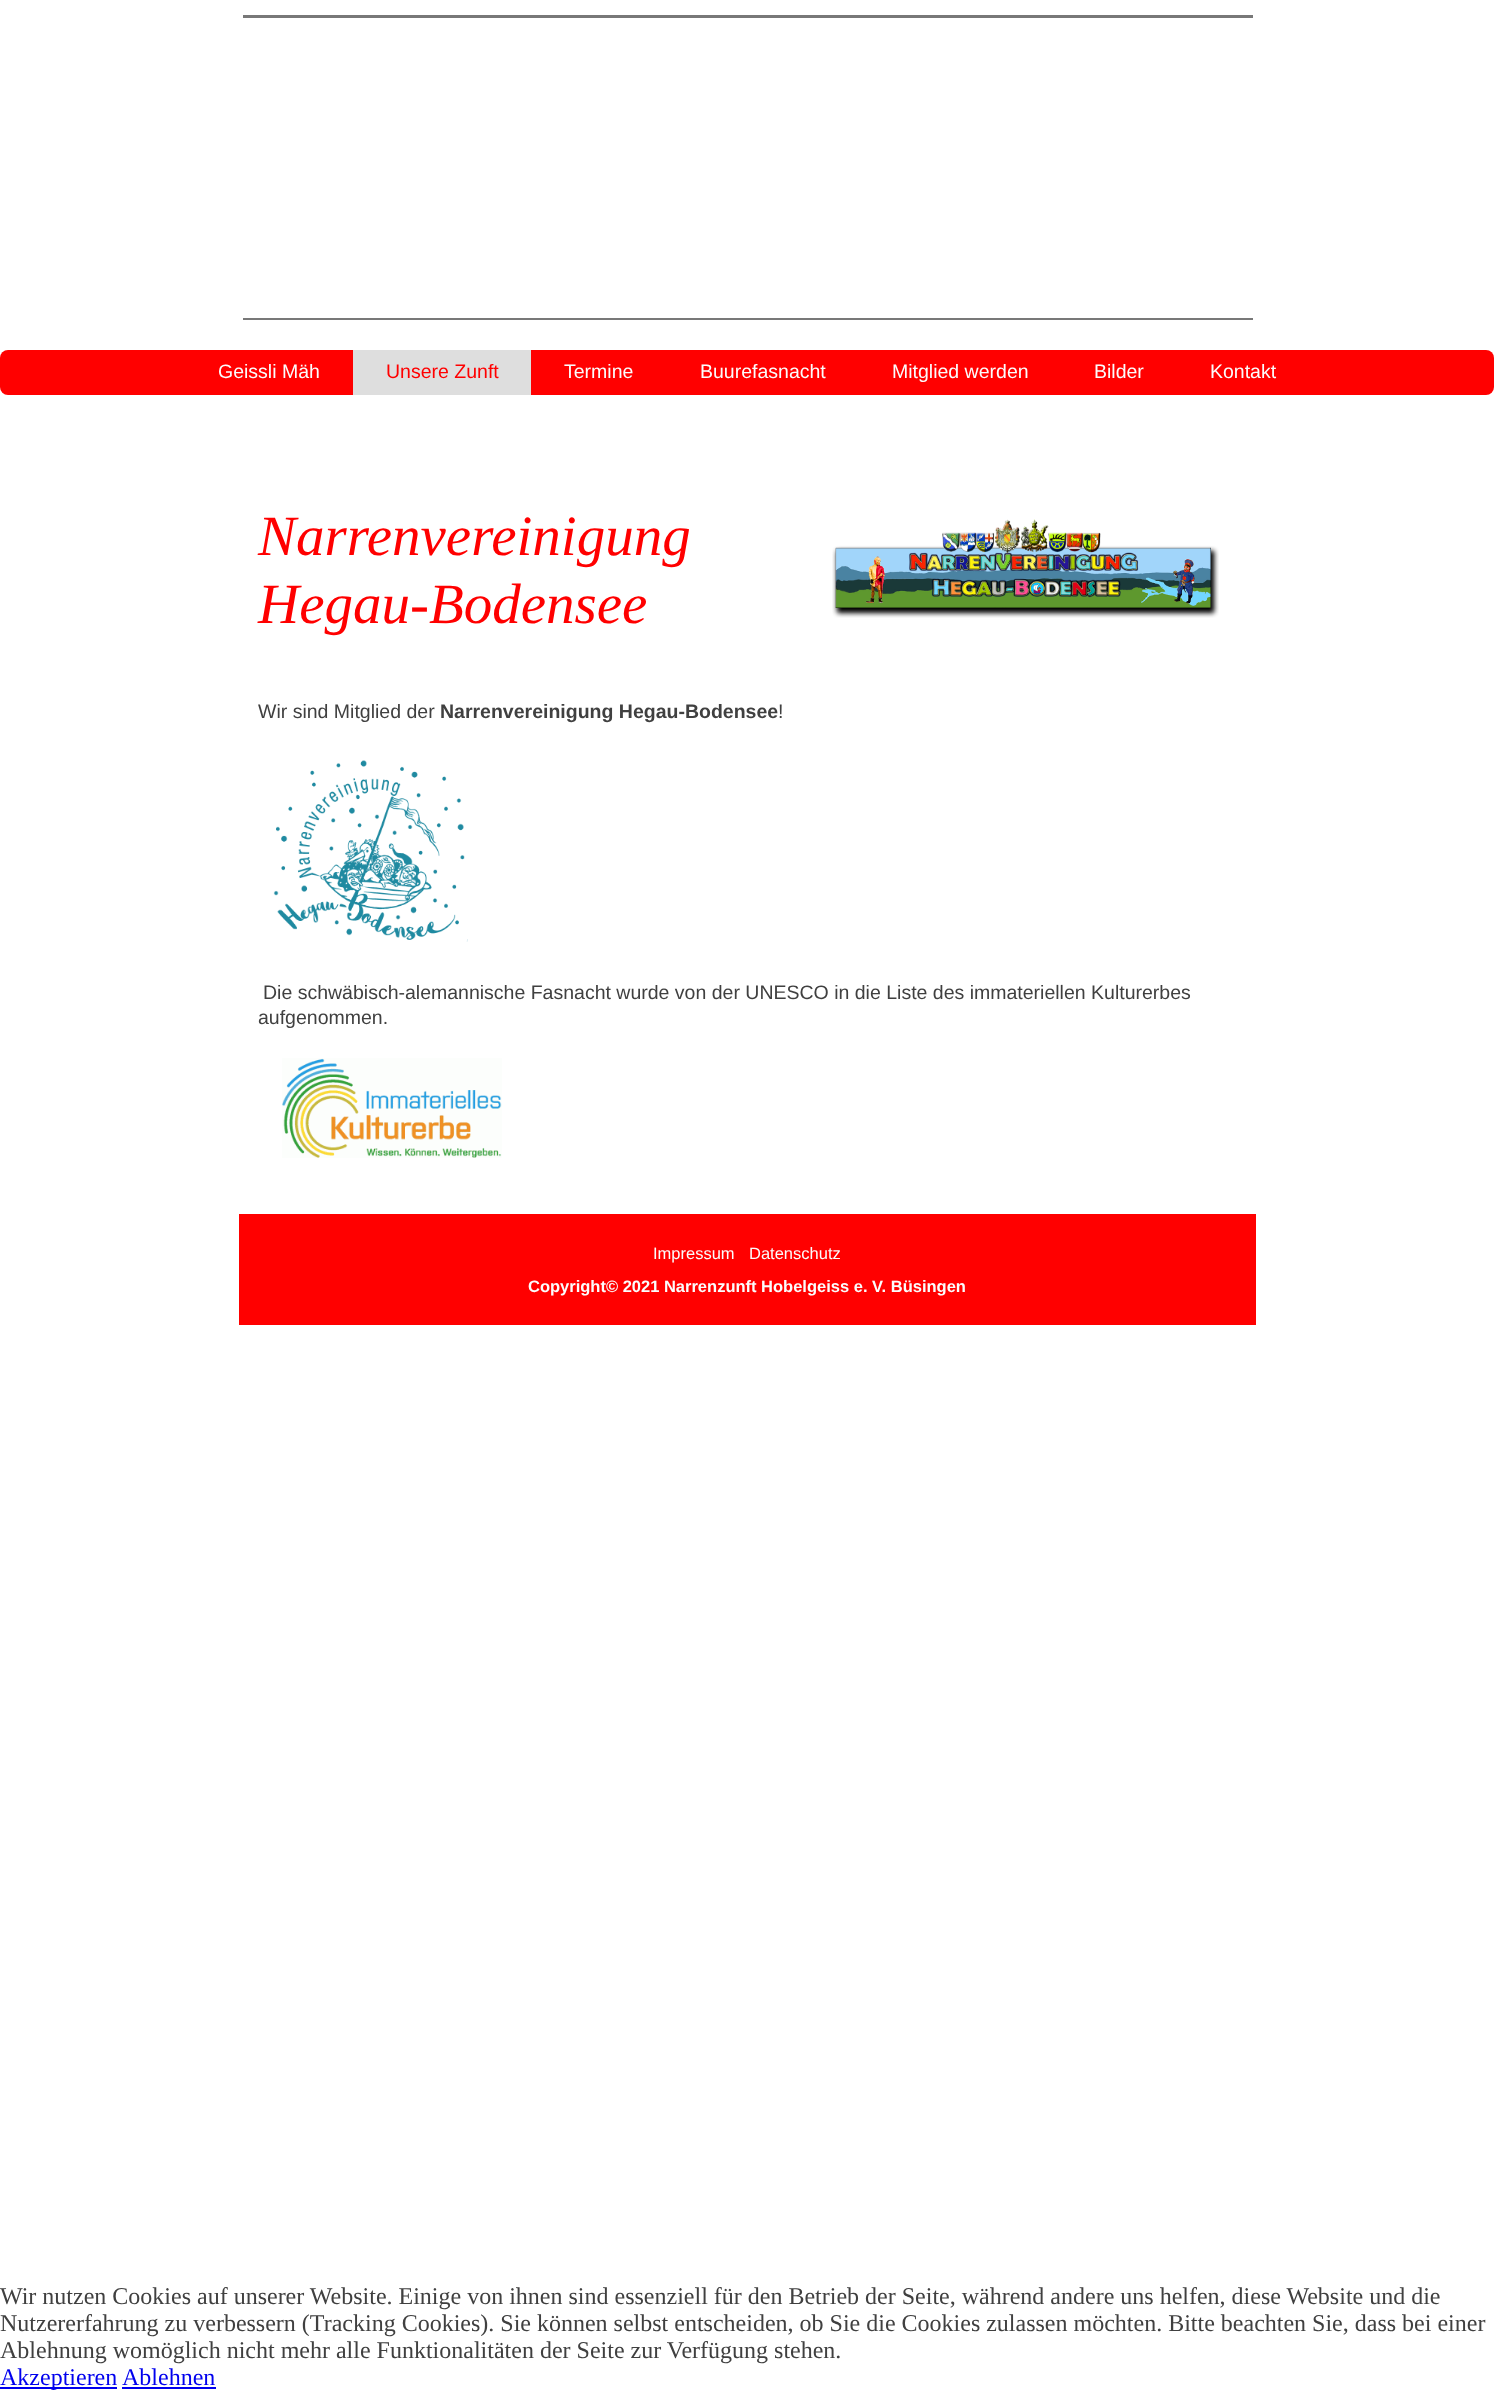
<!DOCTYPE html>
<meta charset="utf-8">
<style>body { margin: 0 } canvas { display: block }</style>
<canvas id="canvas" width="1494" height="2391"></canvas>
<img id="img1" src="images/1.png" hidden>
<img id="img2" src="images/2.png" hidden>
<img id="img3" src="images/3.png" hidden>
<script>
window.onload = function () {
    const canvas = document.getElementById('canvas');
    const context = canvas.getContext('2d');
    context.miterLimit = 4;
    context.fontKerning = 'normal';

    context.fillStyle = 'rgb(255, 255, 255)';
    context.fillRect(0, 0, 1494, 2391);
    context.fillStyle = 'rgb(120, 120, 120)';
    context.fillRect(243, 15, 1010, 3);
    context.fillRect(243, 318, 1010, 2);
    context.fillStyle = 'rgb(255, 0, 0)';
    context.beginPath();
    context.roundRect(0, 350, 1494, 45, 8);
    context.fill();
    context.fillStyle = 'rgb(222, 222, 222)';
    context.fillRect(353, 350, 178, 45);
    context.drawImage(document.getElementById('img1'), 832, 519, 387, 99);
    context.drawImage(document.getElementById('img2'), 273, 760, 195, 182);
    context.drawImage(document.getElementById('img3'), 282, 1058, 220, 100);
    context.fillStyle = 'rgb(255, 0, 0)';
    context.fillRect(239, 1214, 1017, 111);
    context.fillStyle = 'rgb(0, 0, 238)';
    context.fillRect(0, 2387, 117, 2);
    context.fillRect(122, 2387, 94, 2);
    context.font = '19.5px Liberation Sans';
    context.fillStyle = 'rgb(252, 252, 252)';
    context.fillText('Geissli Mäh', 218, 378);
    context.fillStyle = 'rgb(255, 0, 0)';
    context.fillText('Unsere Zunft', 386, 378);
    context.fillStyle = 'rgb(252, 252, 252)';
    context.fillText('Termine', 564, 378);
    context.fillText('Buurefasnacht', 700, 378);
    context.fillText('Mitglied werden', 892, 378);
    context.fillText('Bilder', 1094, 378);
    context.fillText('Kontakt', 1210, 378);
    context.font = 'italic 57px Liberation Serif';
    context.fillStyle = 'rgb(255, 0, 0)';
    context.fillText('Narrenvereinigung', 258, 555);
    context.fillText('Hegau-Bodensee', 258, 623);
    context.font = '19.5px Liberation Sans';
    context.fillStyle = 'rgb(64, 64, 64)';
    context.fillText('Wir sind Mitglied der', 258, 718);
    context.font = 'bold 19.5px Liberation Sans';
    context.fillText('Narrenvereinigung Hegau-Bodensee', 440, 718);
    context.font = '19.5px Liberation Sans';
    context.fillText('!', 778, 718);
    context.fillText('Die schwäbisch-alemannische Fasnacht wurde von der UNESCO in die Liste des immateriellen Kulturerbes', 263, 999);
    context.fillText('aufgenommen.', 258, 1024);
    context.font = '16.5px Liberation Sans';
    context.fillStyle = 'rgb(252, 252, 252)';
    context.fillText('Impressum', 653, 1259);
    context.fillText('Datenschutz', 749, 1259);
    context.font = 'bold 16.5px Liberation Sans';
    context.fillText('Copyright© 2021 Narrenzunft Hobelgeiss e. V. Büsingen', 528, 1292);
    context.font = '24px Liberation Serif';
    context.fillStyle = 'rgb(64, 64, 64)';
    context.fillText('Wir nutzen Cookies auf unserer Website. Einige von ihnen sind essenziell für den Betrieb der Seite, während andere uns helfen, diese Website und die', 0, 2304);
    context.fillText('Nutzererfahrung zu verbessern (Tracking Cookies). Sie können selbst entscheiden, ob Sie die Cookies zulassen möchten. Bitte beachten Sie, dass bei einer', 0, 2331);
    context.fillText('Ablehnung womöglich nicht mehr alle Funktionalitäten der Seite zur Verfügung stehen.', 0, 2358);
    context.fillStyle = 'rgb(0, 0, 238)';
    context.fillText('Akzeptieren', 0, 2385);
    context.fillText('Ablehnen', 122, 2385);
};
</script>
